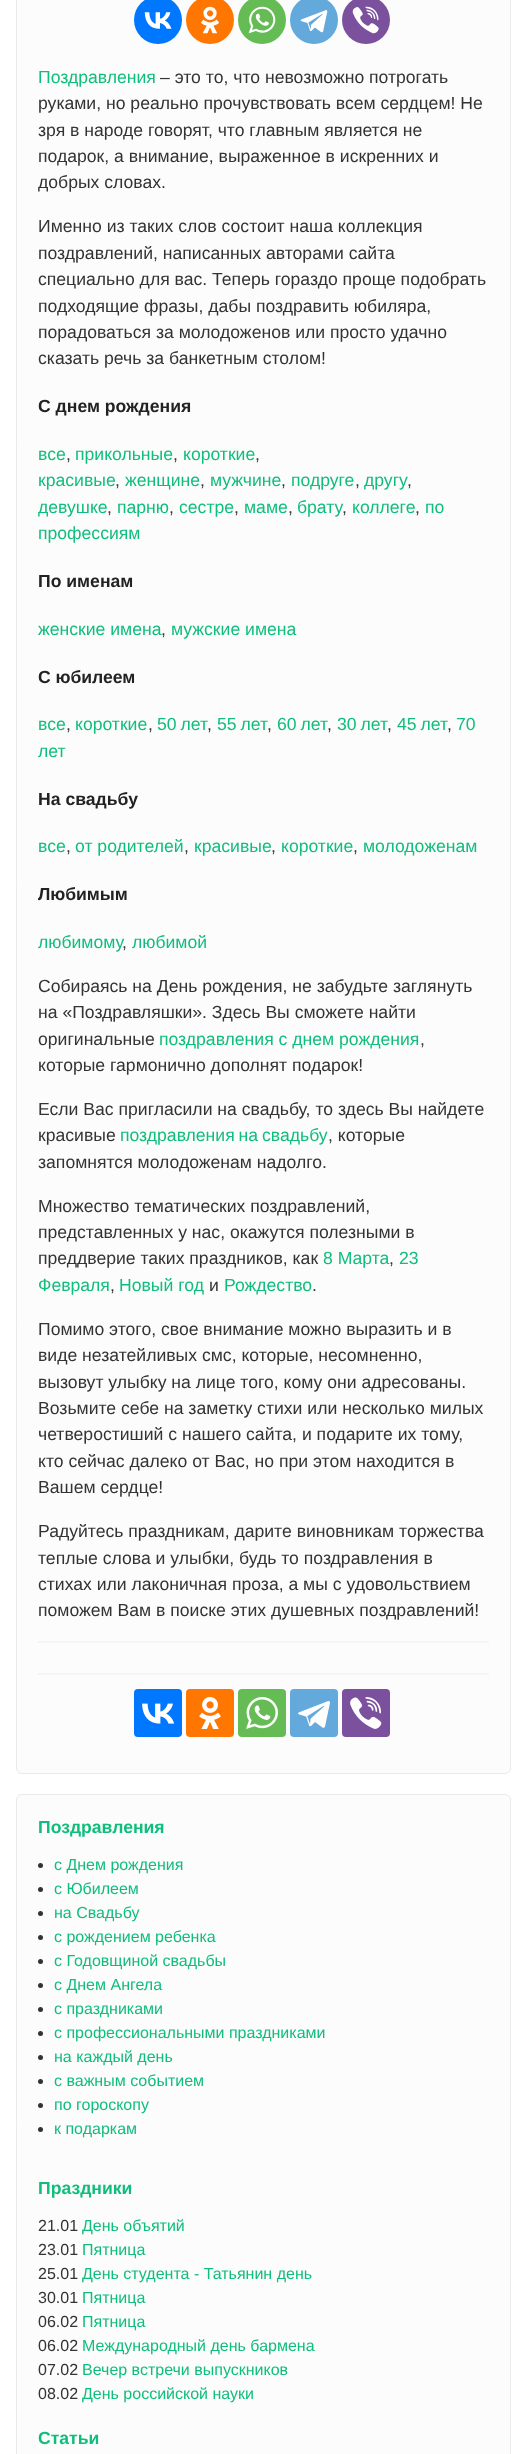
<!DOCTYPE html>
<meta charset="utf-8">
<style>body { margin: 0 } canvas { display: block }</style>
<canvas id="canvas" width="527" height="2454"></canvas>
<img id="img1" src="images/1.png" hidden>
<img id="img2" src="images/2.png" hidden>
<img id="img3" src="images/3.png" hidden>
<img id="img4" src="images/4.png" hidden>
<img id="img5" src="images/5.png" hidden>
<img id="img6" src="images/6.png" hidden>
<img id="img7" src="images/7.png" hidden>
<img id="img8" src="images/8.png" hidden>
<img id="img9" src="images/9.png" hidden>
<img id="img10" src="images/10.png" hidden>
<script>
window.onload = function () {
    const canvas = document.getElementById('canvas');
    const context = canvas.getContext('2d');
    context.miterLimit = 4;
    context.fontKerning = 'normal';

    context.fillStyle = 'rgb(255, 255, 255)';
    context.fillRect(0, 0, 527, 2454);
    context.fillStyle = 'rgb(252, 252, 252)';
    context.beginPath();
    context.roundRect(16.5, -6.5, 494, 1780, 5.5);
    context.fill();
    context.strokeStyle = 'rgb(234, 234, 234)';
    context.stroke();
    context.fillStyle = 'rgb(0, 119, 255)';
    context.beginPath();
    context.arc(158, 20, 24, 0, 2 * Math.PI);
    context.fill();
    context.drawImage(document.getElementById('img1'), 144, 12, 28, 17);
    context.fillStyle = 'rgb(255, 119, 0)';
    context.beginPath();
    context.arc(210, 20, 24, 0, 2 * Math.PI);
    context.fill();
    context.drawImage(document.getElementById('img2'), 201, 6, 18, 28);
    context.fillStyle = 'rgb(101, 188, 84)';
    context.beginPath();
    context.arc(262, 20, 24, 0, 2 * Math.PI);
    context.fill();
    context.drawImage(document.getElementById('img3'), 248, 6, 28, 28);
    context.fillStyle = 'rgb(100, 169, 220)';
    context.beginPath();
    context.arc(314, 20, 24, 0, 2 * Math.PI);
    context.fill();
    context.drawImage(document.getElementById('img4'), 300, 10, 28, 23);
    context.fillStyle = 'rgb(123, 81, 157)';
    context.beginPath();
    context.arc(366, 20, 24, 0, 2 * Math.PI);
    context.fill();
    context.drawImage(document.getElementById('img5'), 352, 6, 27, 28);
    context.fillStyle = 'rgb(245, 245, 245)';
    context.fillRect(38, 1641, 451, 2);
    context.fillRect(38, 1673, 451, 2);
    context.fillStyle = 'rgb(0, 119, 255)';
    context.beginPath();
    context.roundRect(134, 1689, 48, 48, 4);
    context.fill();
    context.drawImage(document.getElementById('img6'), 142, 1703, 33, 21);
    context.fillStyle = 'rgb(255, 119, 0)';
    context.beginPath();
    context.roundRect(186, 1689, 48, 48, 4);
    context.fill();
    context.drawImage(document.getElementById('img7'), 199, 1697, 22, 32);
    context.fillStyle = 'rgb(101, 188, 84)';
    context.beginPath();
    context.roundRect(238, 1689, 48, 48, 4);
    context.fill();
    context.drawImage(document.getElementById('img8'), 246, 1697, 32, 32);
    context.fillStyle = 'rgb(100, 169, 220)';
    context.beginPath();
    context.roundRect(290, 1689, 48, 48, 4);
    context.fill();
    context.drawImage(document.getElementById('img9'), 298, 1701, 32, 27);
    context.fillStyle = 'rgb(123, 81, 157)';
    context.beginPath();
    context.roundRect(342, 1689, 48, 48, 4);
    context.fill();
    context.drawImage(document.getElementById('img10'), 350, 1697, 32, 32);
    context.fillStyle = 'rgb(252, 252, 252)';
    context.beginPath();
    context.roundRect(16.5, 1794.5, 494, 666, 5.5);
    context.fill();
    context.stroke();
    context.fillStyle = 'rgb(51, 51, 51)';
    context.beginPath();
    context.arc(40.5, 1865.5, 2.5, 0, 2 * Math.PI);
    context.fill();
    context.beginPath();
    context.arc(40.5, 1889.5, 2.5, 0, 2 * Math.PI);
    context.fill();
    context.beginPath();
    context.arc(40.5, 1913.5, 2.5, 0, 2 * Math.PI);
    context.fill();
    context.beginPath();
    context.arc(40.5, 1937.5, 2.5, 0, 2 * Math.PI);
    context.fill();
    context.beginPath();
    context.arc(40.5, 1961.5, 2.5, 0, 2 * Math.PI);
    context.fill();
    context.beginPath();
    context.arc(40.5, 1985.5, 2.5, 0, 2 * Math.PI);
    context.fill();
    context.beginPath();
    context.arc(40.5, 2009.5, 2.5, 0, 2 * Math.PI);
    context.fill();
    context.beginPath();
    context.arc(40.5, 2033.5, 2.5, 0, 2 * Math.PI);
    context.fill();
    context.beginPath();
    context.arc(40.5, 2057.5, 2.5, 0, 2 * Math.PI);
    context.fill();
    context.beginPath();
    context.arc(40.5, 2081.5, 2.5, 0, 2 * Math.PI);
    context.fill();
    context.beginPath();
    context.arc(40.5, 2105.5, 2.5, 0, 2 * Math.PI);
    context.fill();
    context.beginPath();
    context.arc(40.5, 2129.5, 2.5, 0, 2 * Math.PI);
    context.fill();
    context.font = '17.6px Liberation Sans';
    context.fillStyle = 'rgb(15, 190, 124)';
    context.fillText('Поздравления', 38, 83);
    context.fillStyle = 'rgb(51, 51, 51)';
    context.fillText('– это то, что невозможно потрогать', 160, 83);
    context.fillText('руками, но реально прочувствовать всем сердцем! Не', 38, 109);
    context.fillText('зря в народе говорят, что главным является не', 38, 136);
    context.fillText('подарок, а внимание, выраженное в искренних и', 38, 162);
    context.fillText('добрых словах.', 38, 188);
    context.fillText('Именно из таких слов состоит наша коллекция', 38, 232);
    context.fillText('поздравлений, написанных авторами сайта', 38, 259);
    context.fillText('специально для вас. Теперь гораздо проще подобрать', 38, 285);
    context.fillText('подходящие фразы, дабы поздравить юбиляра,', 38, 312);
    context.fillText('порадоваться за молодоженов или просто удачно', 38, 338);
    context.fillText('сказать речь за банкетным столом!', 38, 364);
    context.font = 'bold 17.6px Liberation Sans';
    context.fillStyle = 'rgb(34, 34, 34)';
    context.fillText('С днем рождения', 38, 412);
    context.font = '17.6px Liberation Sans';
    context.fillStyle = 'rgb(15, 190, 124)';
    context.fillText('все', 38, 460);
    context.fillStyle = 'rgb(51, 51, 51)';
    context.fillText(',', 66, 460);
    context.fillStyle = 'rgb(15, 190, 124)';
    context.fillText('прикольные', 75, 460);
    context.fillStyle = 'rgb(51, 51, 51)';
    context.fillText(',', 173, 460);
    context.fillStyle = 'rgb(15, 190, 124)';
    context.fillText('короткие', 183, 460);
    context.fillStyle = 'rgb(51, 51, 51)';
    context.fillText(',', 255, 460);
    context.fillStyle = 'rgb(15, 190, 124)';
    context.fillText('красивые', 38, 486);
    context.fillStyle = 'rgb(51, 51, 51)';
    context.fillText(',', 115, 486);
    context.fillStyle = 'rgb(15, 190, 124)';
    context.fillText('женщине', 125, 486);
    context.fillStyle = 'rgb(51, 51, 51)';
    context.fillText(',', 200, 486);
    context.fillStyle = 'rgb(15, 190, 124)';
    context.fillText('мужчине', 210, 486);
    context.fillStyle = 'rgb(51, 51, 51)';
    context.fillText(',', 281, 486);
    context.fillStyle = 'rgb(15, 190, 124)';
    context.fillText('подруге', 291, 486);
    context.fillStyle = 'rgb(51, 51, 51)';
    context.fillText(',', 355, 486);
    context.fillStyle = 'rgb(15, 190, 124)';
    context.fillText('другу', 364, 486);
    context.fillStyle = 'rgb(51, 51, 51)';
    context.fillText(',', 407, 486);
    context.fillStyle = 'rgb(15, 190, 124)';
    context.fillText('девушке', 38, 513);
    context.fillStyle = 'rgb(51, 51, 51)';
    context.fillText(',', 107, 513);
    context.fillStyle = 'rgb(15, 190, 124)';
    context.fillText('парню', 117, 513);
    context.fillStyle = 'rgb(51, 51, 51)';
    context.fillText(',', 169, 513);
    context.fillStyle = 'rgb(15, 190, 124)';
    context.fillText('сестре', 179, 513);
    context.fillStyle = 'rgb(51, 51, 51)';
    context.fillText(',', 234, 513);
    context.fillStyle = 'rgb(15, 190, 124)';
    context.fillText('маме', 244, 513);
    context.fillStyle = 'rgb(51, 51, 51)';
    context.fillText(',', 288, 513);
    context.fillStyle = 'rgb(15, 190, 124)';
    context.fillText('брату', 297, 513);
    context.fillStyle = 'rgb(51, 51, 51)';
    context.fillText(',', 342, 513);
    context.fillStyle = 'rgb(15, 190, 124)';
    context.fillText('коллеге', 352, 513);
    context.fillStyle = 'rgb(51, 51, 51)';
    context.fillText(',', 415, 513);
    context.fillStyle = 'rgb(15, 190, 124)';
    context.fillText('по', 425, 513);
    context.fillText('профессиям', 38, 539);
    context.font = 'bold 17.6px Liberation Sans';
    context.fillStyle = 'rgb(34, 34, 34)';
    context.fillText('По именам', 38, 587);
    context.font = '17.6px Liberation Sans';
    context.fillStyle = 'rgb(15, 190, 124)';
    context.fillText('женские имена', 38, 635);
    context.fillStyle = 'rgb(51, 51, 51)';
    context.fillText(',', 161, 635);
    context.fillStyle = 'rgb(15, 190, 124)';
    context.fillText('мужские имена', 171, 635);
    context.font = 'bold 17.6px Liberation Sans';
    context.fillStyle = 'rgb(34, 34, 34)';
    context.fillText('С юбилеем', 38, 683);
    context.font = '17.6px Liberation Sans';
    context.fillStyle = 'rgb(15, 190, 124)';
    context.fillText('все', 38, 730);
    context.fillStyle = 'rgb(51, 51, 51)';
    context.fillText(',', 66, 730);
    context.fillStyle = 'rgb(15, 190, 124)';
    context.fillText('короткие', 75, 730);
    context.fillStyle = 'rgb(51, 51, 51)';
    context.fillText(',', 148, 730);
    context.wordSpacing = '-1px';
    context.fillStyle = 'rgb(15, 190, 124)';
    context.fillText('50 лет', 157, 730);
    context.wordSpacing = '0px';
    context.fillStyle = 'rgb(51, 51, 51)';
    context.fillText(',', 207, 730);
    context.wordSpacing = '-1px';
    context.fillStyle = 'rgb(15, 190, 124)';
    context.fillText('55 лет', 217, 730);
    context.wordSpacing = '0px';
    context.fillStyle = 'rgb(51, 51, 51)';
    context.fillText(',', 267, 730);
    context.wordSpacing = '-1px';
    context.fillStyle = 'rgb(15, 190, 124)';
    context.fillText('60 лет', 277, 730);
    context.wordSpacing = '0px';
    context.fillStyle = 'rgb(51, 51, 51)';
    context.fillText(',', 327, 730);
    context.wordSpacing = '-1px';
    context.fillStyle = 'rgb(15, 190, 124)';
    context.fillText('30 лет', 337, 730);
    context.wordSpacing = '0px';
    context.fillStyle = 'rgb(51, 51, 51)';
    context.fillText(',', 387, 730);
    context.wordSpacing = '-1px';
    context.fillStyle = 'rgb(15, 190, 124)';
    context.fillText('45 лет', 397, 730);
    context.wordSpacing = '0px';
    context.fillStyle = 'rgb(51, 51, 51)';
    context.fillText(',', 447, 730);
    context.fillStyle = 'rgb(15, 190, 124)';
    context.fillText('70', 456, 730);
    context.fillText('лет', 38, 757);
    context.font = 'bold 17.6px Liberation Sans';
    context.fillStyle = 'rgb(34, 34, 34)';
    context.fillText('На свадьбу', 38, 805);
    context.font = '17.6px Liberation Sans';
    context.fillStyle = 'rgb(15, 190, 124)';
    context.fillText('все', 38, 852);
    context.fillStyle = 'rgb(51, 51, 51)';
    context.fillText(',', 66, 852);
    context.fillStyle = 'rgb(15, 190, 124)';
    context.fillText('от родителей', 75, 852);
    context.fillStyle = 'rgb(51, 51, 51)';
    context.fillText(',', 184, 852);
    context.fillStyle = 'rgb(15, 190, 124)';
    context.fillText('красивые', 194, 852);
    context.fillStyle = 'rgb(51, 51, 51)';
    context.fillText(',', 271, 852);
    context.fillStyle = 'rgb(15, 190, 124)';
    context.fillText('короткие', 281, 852);
    context.fillStyle = 'rgb(51, 51, 51)';
    context.fillText(',', 353, 852);
    context.fillStyle = 'rgb(15, 190, 124)';
    context.fillText('молодоженам', 363, 852);
    context.font = 'bold 17.6px Liberation Sans';
    context.fillStyle = 'rgb(34, 34, 34)';
    context.fillText('Любимым', 38, 900);
    context.font = '17.6px Liberation Sans';
    context.fillStyle = 'rgb(15, 190, 124)';
    context.fillText('любимому', 38, 948);
    context.fillText('любимой', 132, 948);
    context.fillStyle = 'rgb(51, 51, 51)';
    context.fillText(',', 122, 948);
    context.fillText('Собираясь на День рождения, не забудьте заглянуть', 38, 992);
    context.fillText('на «Поздравляшки». Здесь Вы сможете найти', 38, 1018);
    context.fillText('оригинальные', 38, 1045);
    context.fillStyle = 'rgb(15, 190, 124)';
    context.fillText('поздравления с днем рождения', 159, 1045);
    context.fillStyle = 'rgb(51, 51, 51)';
    context.fillText(',', 420, 1045);
    context.fillText('которые гармонично дополнят подарок!', 38, 1071);
    context.fillText('Если Вас пригласили на свадьбу, то здесь Вы найдете', 38, 1115);
    context.fillText('красивые', 38, 1141);
    context.wordSpacing = '-1px';
    context.fillStyle = 'rgb(15, 190, 124)';
    context.fillText('поздравления на свадьбу', 120, 1141);
    context.wordSpacing = '0px';
    context.fillStyle = 'rgb(51, 51, 51)';
    context.fillText(', которые', 328, 1141);
    context.fillText('запомнятся молодоженам надолго.', 38, 1168);
    context.fillText('Множество тематических поздравлений,', 38, 1212);
    context.fillText('представленных у нас, окажутся полезными в', 38, 1238);
    context.fillText('преддверие таких праздников, как', 38, 1264);
    context.fillStyle = 'rgb(15, 190, 124)';
    context.fillText('8 Марта', 323, 1264);
    context.fillStyle = 'rgb(51, 51, 51)';
    context.fillText(',', 389, 1264);
    context.fillStyle = 'rgb(15, 190, 124)';
    context.fillText('23', 399, 1264);
    context.fillText('Февраля', 38, 1291);
    context.fillText('Новый год', 119, 1291);
    context.fillStyle = 'rgb(51, 51, 51)';
    context.fillText('и', 209, 1291);
    context.fillStyle = 'rgb(15, 190, 124)';
    context.fillText('Рождество', 224, 1291);
    context.fillStyle = 'rgb(51, 51, 51)';
    context.fillText(',', 110, 1291);
    context.fillText('.', 312, 1291);
    context.fillText('Помимо этого, свое внимание можно выразить и в', 38, 1335);
    context.fillText('виде незатейливых смс, которые, несомненно,', 38, 1361);
    context.fillText('вызовут улыбку на лице того, кому они адресованы.', 38, 1388);
    context.fillText('Возьмите себе на заметку стихи или несколько милых', 38, 1414);
    context.fillText('четверостиший с нашего сайта, и подарите их тому,', 38, 1440);
    context.fillText('кто сейчас далеко от Вас, но при этом находится в', 38, 1467);
    context.fillText('Вашем сердце!', 38, 1493);
    context.fillText('Радуйтесь праздникам, дарите виновникам торжества', 38, 1537);
    context.fillText('теплые слова и улыбки, будь то поздравления в', 38, 1564);
    context.fillText('стихах или лаконичная проза, а мы с удовольствием', 38, 1590);
    context.fillText('поможем Вам в поиске этих душевных поздравлений!', 38, 1616);
    context.font = 'bold 17.6px Liberation Sans';
    context.fillStyle = 'rgb(15, 190, 124)';
    context.fillText('Поздравления', 38, 1833);
    context.font = '16px Liberation Sans';
    context.fillText('с Днем рождения', 54, 1870);
    context.fillText('с Юбилеем', 54, 1894);
    context.fillText('на Свадьбу', 54, 1918);
    context.fillText('с рождением ребенка', 54, 1942);
    context.fillText('с Годовщиной свадьбы', 54, 1966);
    context.fillText('с Днем Ангела', 54, 1990);
    context.fillText('с праздниками', 54, 2014);
    context.fillText('с профессиональными праздниками', 54, 2038);
    context.fillText('на каждый день', 54, 2062);
    context.fillText('с важным событием', 54, 2086);
    context.fillText('по гороскопу', 54, 2110);
    context.fillText('к подаркам', 54, 2134);
    context.font = 'bold 17.6px Liberation Sans';
    context.fillText('Праздники', 38, 2194);
    context.font = '16px Liberation Sans';
    context.fillStyle = 'rgb(51, 51, 51)';
    context.fillText('21.01', 38, 2231);
    context.fillStyle = 'rgb(15, 190, 124)';
    context.fillText('День объятий', 82, 2231);
    context.fillStyle = 'rgb(51, 51, 51)';
    context.fillText('23.01', 38, 2255);
    context.fillStyle = 'rgb(15, 190, 124)';
    context.fillText('Пятница', 82, 2255);
    context.fillStyle = 'rgb(51, 51, 51)';
    context.fillText('25.01', 38, 2279);
    context.fillStyle = 'rgb(15, 190, 124)';
    context.fillText('День студента - Татьянин день', 82, 2279);
    context.fillStyle = 'rgb(51, 51, 51)';
    context.fillText('30.01', 38, 2303);
    context.fillStyle = 'rgb(15, 190, 124)';
    context.fillText('Пятница', 82, 2303);
    context.fillStyle = 'rgb(51, 51, 51)';
    context.fillText('06.02', 38, 2327);
    context.fillStyle = 'rgb(15, 190, 124)';
    context.fillText('Пятница', 82, 2327);
    context.fillStyle = 'rgb(51, 51, 51)';
    context.fillText('06.02', 38, 2351);
    context.fillStyle = 'rgb(15, 190, 124)';
    context.fillText('Международный день бармена', 82, 2351);
    context.fillStyle = 'rgb(51, 51, 51)';
    context.fillText('07.02', 38, 2375);
    context.fillStyle = 'rgb(15, 190, 124)';
    context.fillText('Вечер встречи выпускников', 82, 2375);
    context.fillStyle = 'rgb(51, 51, 51)';
    context.fillText('08.02', 38, 2399);
    context.fillStyle = 'rgb(15, 190, 124)';
    context.fillText('День российской науки', 82, 2399);
    context.font = 'bold 17.6px Liberation Sans';
    context.fillText('Статьи', 38, 2444);
};
</script>
